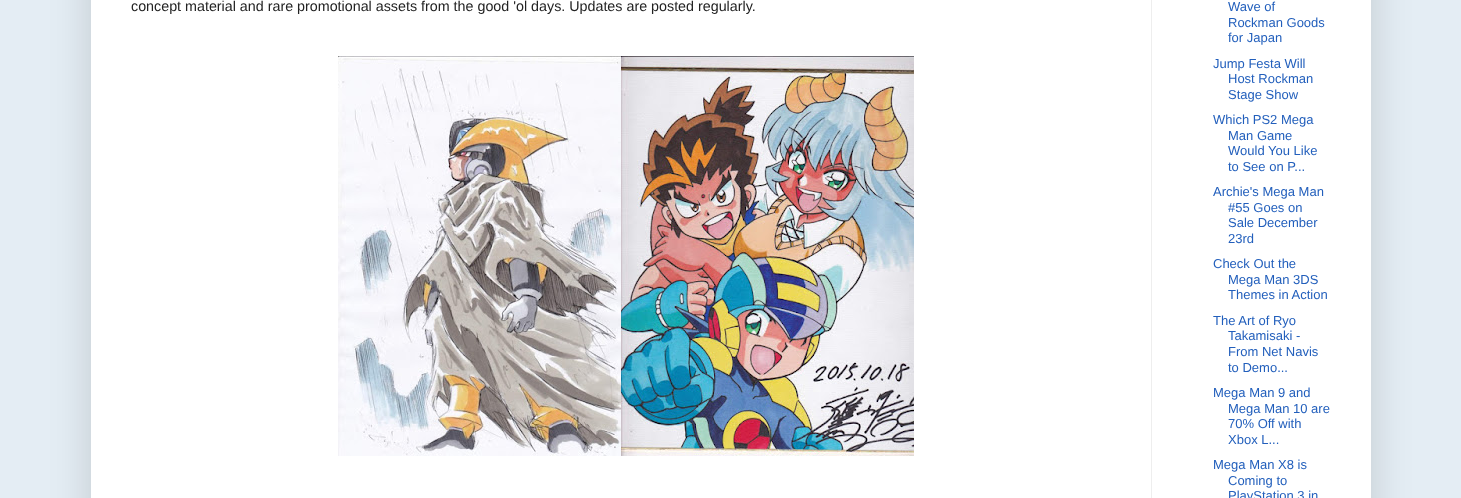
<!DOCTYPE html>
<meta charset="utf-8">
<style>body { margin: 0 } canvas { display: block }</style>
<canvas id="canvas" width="1461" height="498"></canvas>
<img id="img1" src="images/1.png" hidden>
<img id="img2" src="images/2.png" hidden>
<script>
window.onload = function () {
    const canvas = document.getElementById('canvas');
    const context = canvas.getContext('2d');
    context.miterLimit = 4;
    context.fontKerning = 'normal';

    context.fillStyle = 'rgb(228, 237, 244)';
    context.fillRect(0, 0, 1461, 498);
    context.fillStyle = 'rgba(0, 0, 0, 0.15)';
    context.filter = 'blur(20px)';
    context.beginPath();
    context.rect(91, -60, 1280, 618);
    context.fill();
    context.filter = 'none';
    context.fillStyle = 'rgb(255, 255, 255)';
    context.fillRect(91, 0, 1280, 498);
    context.drawImage(document.getElementById('img1'), 338, 56, 283, 400);
    context.drawImage(document.getElementById('img2'), 621, 56, 293, 400);
    context.fillStyle = 'rgb(238, 238, 238)';
    context.fillRect(1151, 0, 1, 498);
    context.font = '14.3px Liberation Sans';
    context.fillStyle = 'rgb(34, 34, 34)';
    context.fillText('concept material and rare promotional assets from the good \'ol days. Updates are posted regularly.', 131, 11);
    context.font = '13px Liberation Sans';
    context.fillStyle = 'rgb(34, 95, 188)';
    context.fillText('Wave of', 1228, 11);
    context.fillText('Rockman Goods', 1228, 27);
    context.fillText('for Japan', 1228, 42);
    context.fillText('Jump Festa Will', 1213, 68);
    context.fillText('Host Rockman', 1228, 83);
    context.fillText('Stage Show', 1228, 99);
    context.fillText('Which PS2 Mega', 1213, 124);
    context.fillText('Man Game', 1228, 140);
    context.fillText('Would You Like', 1228, 155);
    context.fillText('to See on P...', 1228, 171);
    context.fillText('Archie\'s Mega Man', 1213, 196);
    context.fillText('#55 Goes on', 1228, 212);
    context.fillText('Sale December', 1228, 227);
    context.fillText('23rd', 1228, 243);
    context.fillText('Check Out the', 1213, 268);
    context.fillText('Mega Man 3DS', 1228, 284);
    context.fillText('Themes in Action', 1228, 299);
    context.fillText('The Art of Ryo', 1213, 325);
    context.fillText('Takamisaki -', 1228, 340);
    context.fillText('From Net Navis', 1228, 356);
    context.fillText('to Demo...', 1228, 372);
    context.fillText('Mega Man 9 and', 1213, 397);
    context.fillText('Mega Man 10 are', 1228, 413);
    context.fillText('70% Off with', 1228, 428);
    context.fillText('Xbox L...', 1228, 444);
    context.fillText('Mega Man X8 is', 1213, 469);
    context.fillText('Coming to', 1228, 485);
    context.fillText('PlayStation 3 in', 1228, 500);
};
</script>
